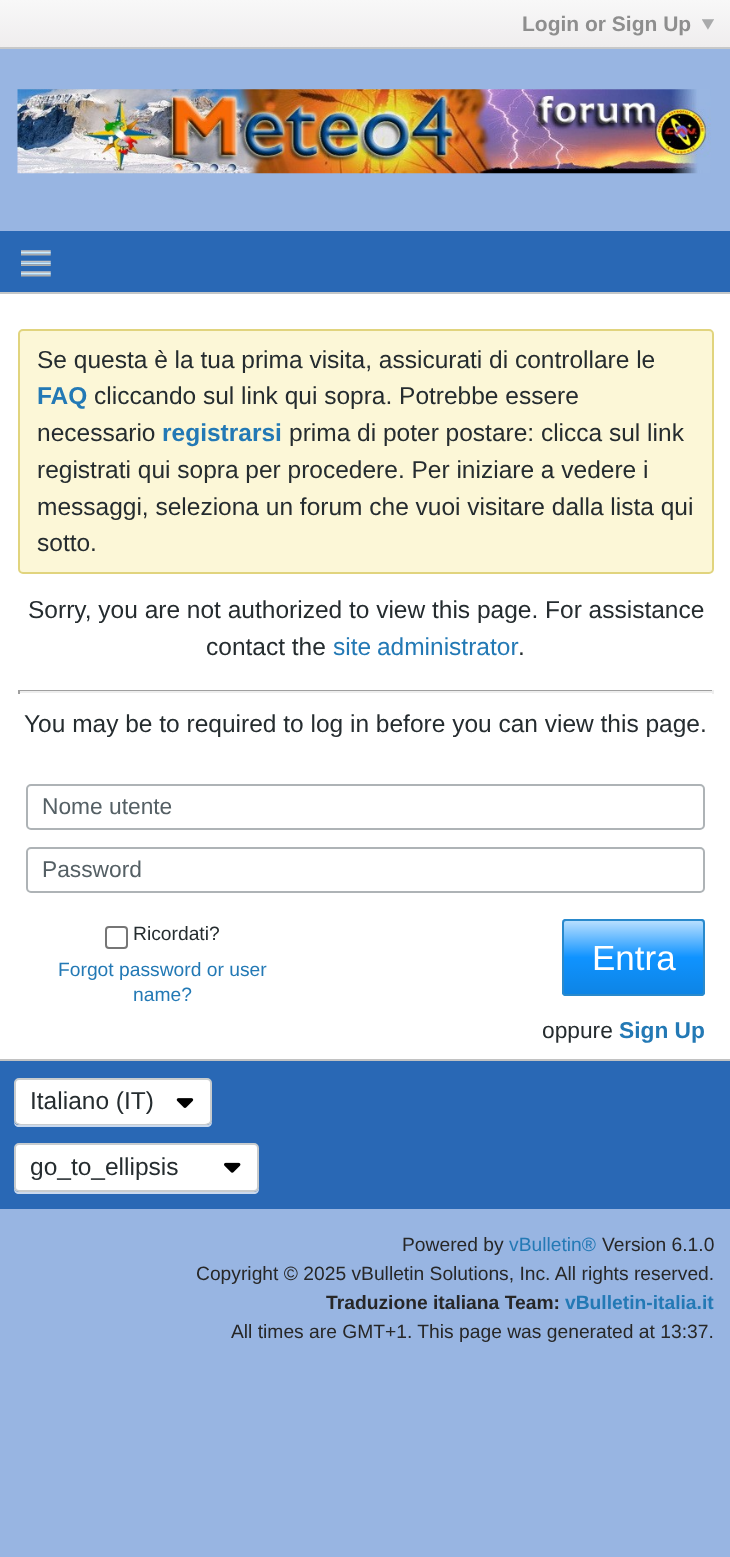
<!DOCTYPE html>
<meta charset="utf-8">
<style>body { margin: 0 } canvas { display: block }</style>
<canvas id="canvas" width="730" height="1557"></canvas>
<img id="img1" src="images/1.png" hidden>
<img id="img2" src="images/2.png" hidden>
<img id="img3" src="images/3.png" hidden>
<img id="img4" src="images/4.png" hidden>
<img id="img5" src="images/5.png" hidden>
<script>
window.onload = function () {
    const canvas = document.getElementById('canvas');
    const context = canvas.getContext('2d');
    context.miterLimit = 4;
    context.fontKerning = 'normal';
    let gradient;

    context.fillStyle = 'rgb(152, 181, 226)';
    context.fillRect(0, 0, 730, 1557);
    gradient = context.createLinearGradient(366, 0, 366, 47);
    gradient.addColorStop(0, 'rgb(248, 248, 248)');
    gradient.addColorStop(1, 'rgb(239, 237, 238)');
    context.fillStyle = gradient;
    context.fillRect(0, 0, 730, 47);
    context.fillStyle = 'rgb(199, 200, 201)';
    context.fillRect(0, 47, 730, 2);
    context.drawImage(document.getElementById('img1'), 702, 19, 12, 11);
    context.drawImage(document.getElementById('img2'), 17, 89, 694, 85);
    context.fillStyle = 'rgb(41, 104, 181)';
    context.fillRect(0, 231, 730, 61);
    context.fillStyle = 'rgb(196, 199, 200)';
    context.fillRect(0, 292, 730, 2);
    context.drawImage(document.getElementById('img3'), 21, 250, 30, 27);
    context.fillStyle = 'rgb(255, 255, 255)';
    context.fillRect(0, 294, 730, 765);
    context.fillStyle = 'rgb(252, 247, 215)';
    context.beginPath();
    context.roundRect(19, 330, 694, 243, 4);
    context.fill();
    context.strokeStyle = 'rgb(225, 212, 126)';
    context.lineWidth = 2;
    context.stroke();
    context.fillStyle = 'rgb(159, 159, 159)';
    context.fillRect(18, 690, 696, 1);
    context.fillStyle = 'rgb(238, 238, 238)';
    context.fillRect(712, 690, 2, 4);
    context.fillRect(18, 691, 696, 2);
    context.fillStyle = 'rgb(159, 159, 159)';
    context.fillRect(18, 690, 2, 4);
    context.beginPath();
    context.roundRect(27, 785, 677, 44, 4);
    context.strokeStyle = 'rgb(174, 179, 182)';
    context.stroke();
    context.beginPath();
    context.roundRect(27, 848, 677, 44, 4);
    context.stroke();
    context.beginPath();
    context.roundRect(106, 927, 21, 21, 3);
    context.strokeStyle = 'rgb(118, 118, 118)';
    context.stroke();
    context.fillStyle = 'rgb(15, 147, 255)';
    context.beginPath();
    context.roundRect(562, 919, 143, 77, 4);
    context.fill();
    gradient = context.createLinearGradient(634, 994, 634, 921);
    gradient.addColorStop(0, 'rgba(0, 0, 0, 0.1)');
    gradient.addColorStop(0.5, 'rgba(0, 0, 0, 0)');
    gradient.addColorStop(0.5, 'rgba(255, 255, 255, 0)');
    gradient.addColorStop(1, 'rgba(255, 255, 255, 0.7)');
    context.fillStyle = gradient;
    context.fillRect(562, 921, 143, 73);
    context.beginPath();
    context.roundRect(563, 920, 141, 75, 3);
    context.strokeStyle = 'rgb(41, 137, 204)';
    context.stroke();
    context.fillStyle = 'rgb(41, 104, 181)';
    context.fillRect(0, 1061, 730, 148);
    context.fillStyle = 'rgb(194, 194, 194)';
    context.fillRect(0, 1059, 730, 2);
    context.fillStyle = 'rgb(202, 217, 237)';
    context.beginPath();
    context.moveTo(14, 1120);
    context.lineTo(14, 1122);
    context.bezierCurveTo(14, 1125, 16, 1127, 19, 1127);
    context.lineTo(207, 1127);
    context.bezierCurveTo(210, 1127, 212, 1125, 212, 1122);
    context.lineTo(212, 1083);
    context.lineTo(212, 1120);
    context.bezierCurveTo(212, 1123, 209, 1125, 206, 1125);
    context.lineTo(19, 1125);
    context.bezierCurveTo(16, 1125, 14, 1123, 14, 1120);
    context.closePath();
    context.fill();
    context.fillStyle = 'rgb(255, 255, 255)';
    context.beginPath();
    context.roundRect(15, 1079, 196, 45, 4);
    context.fill();
    context.strokeStyle = 'rgb(200, 204, 206)';
    context.stroke();
    context.beginPath();
    context.roundRect(16, 1080, 194, 44, 5);
    context.fill();
    context.drawImage(document.getElementById('img4'), 176, 1098, 18, 10);
    context.fillStyle = 'rgb(202, 217, 237)';
    context.beginPath();
    context.moveTo(14, 1186);
    context.lineTo(14, 1189);
    context.bezierCurveTo(14, 1192, 16, 1194, 19, 1194);
    context.lineTo(254, 1194);
    context.bezierCurveTo(257, 1194, 259, 1192, 259, 1189);
    context.lineTo(259, 1186);
    context.bezierCurveTo(259, 1189, 257, 1192, 254, 1192);
    context.lineTo(19, 1192);
    context.bezierCurveTo(16, 1192, 14, 1189, 14, 1186);
    context.closePath();
    context.fill();
    context.fillStyle = 'rgb(255, 255, 255)';
    context.beginPath();
    context.roundRect(15, 1144, 243, 47, 4);
    context.fill();
    context.stroke();
    context.drawImage(document.getElementById('img5'), 224, 1162, 17, 11);
    context.font = 'bold 21px Liberation Sans';
    context.fillStyle = 'rgb(142, 142, 142)';
    context.fillText('Login or Sign Up', 522, 31);
    context.font = '24.5px Liberation Sans';
    context.fillStyle = 'rgb(37, 44, 47)';
    context.fillText('Se questa è la tua prima visita, assicurati di controllare le', 37, 368);
    context.font = 'bold 24.5px Liberation Sans';
    context.fillStyle = 'rgb(35, 121, 181)';
    context.fillText('FAQ', 37, 404);
    context.font = '24.5px Liberation Sans';
    context.fillStyle = 'rgb(37, 44, 47)';
    context.fillText('cliccando sul link qui sopra. Potrebbe essere', 94, 404);
    context.fillText('necessario', 37, 441);
    context.font = 'bold 24.5px Liberation Sans';
    context.fillStyle = 'rgb(35, 121, 181)';
    context.fillText('registrarsi', 162, 441);
    context.font = '24.5px Liberation Sans';
    context.fillStyle = 'rgb(37, 44, 47)';
    context.fillText('prima di poter postare: clicca sul link', 289, 441);
    context.fillText('registrati qui sopra per procedere. Per iniziare a vedere i', 37, 478);
    context.fillText('messaggi, seleziona un forum che vuoi visitare dalla lista qui', 37, 515);
    context.fillText('sotto.', 37, 551);
    context.fillText('Sorry, you are not authorized to view this page. For assistance', 28, 618);
    context.fillText('contact the', 206, 655);
    context.wordSpacing = '-1px';
    context.fillStyle = 'rgb(35, 121, 181)';
    context.fillText('site administrator', 333, 655);
    context.wordSpacing = '0px';
    context.fillStyle = 'rgb(37, 44, 47)';
    context.fillText('.', 518, 655);
    context.fillText('You may be to required to log in before you can view this page.', 24, 732);
    context.font = '22.75px Liberation Sans';
    context.fillStyle = 'rgb(85, 96, 101)';
    context.fillText('Nome utente', 42, 814);
    context.fillText('Password', 42, 877);
    context.font = '19.25px Liberation Sans';
    context.fillStyle = 'rgb(37, 44, 47)';
    context.fillText('Ricordati?', 133, 940);
    context.font = '35px Liberation Sans';
    context.fillStyle = 'rgb(255, 255, 255)';
    context.fillText('Entra', 592, 970);
    context.font = '19.25px Liberation Sans';
    context.fillStyle = 'rgb(35, 121, 181)';
    context.fillText('Forgot password or user', 58, 976);
    context.fillText('name?', 133, 1001);
    context.font = '22.75px Liberation Sans';
    context.fillStyle = 'rgb(37, 44, 47)';
    context.fillText('oppure', 542, 1038);
    context.font = 'bold 22.75px Liberation Sans';
    context.fillStyle = 'rgb(35, 121, 181)';
    context.fillText('Sign Up', 619, 1038);
    context.font = '24.5px Liberation Sans';
    context.fillStyle = 'rgb(37, 44, 47)';
    context.fillText('Italiano (IT)', 30, 1109);
    context.fillText('go_to_ellipsis', 30, 1175);
    context.font = '19.25px Liberation Sans';
    context.fillStyle = 'rgb(39, 39, 39)';
    context.fillText('Powered by', 402, 1251);
    context.fillStyle = 'rgb(35, 121, 181)';
    context.fillText('vBulletin®', 509, 1251);
    context.fillStyle = 'rgb(39, 39, 39)';
    context.fillText('Version 6.1.0', 602, 1251);
    context.fillText('Copyright © 2025 vBulletin Solutions, Inc. All rights reserved.', 196, 1280);
    context.font = 'bold 19.25px Liberation Sans';
    context.fillText('Traduzione italiana Team:', 326, 1309);
    context.fillStyle = 'rgb(35, 121, 181)';
    context.fillText('vBulletin-italia.it', 565, 1309);
    context.font = '19.25px Liberation Sans';
    context.fillStyle = 'rgb(39, 39, 39)';
    context.fillText('All times are GMT+1. This page was generated at 13:37.', 231, 1338);
};
</script>
